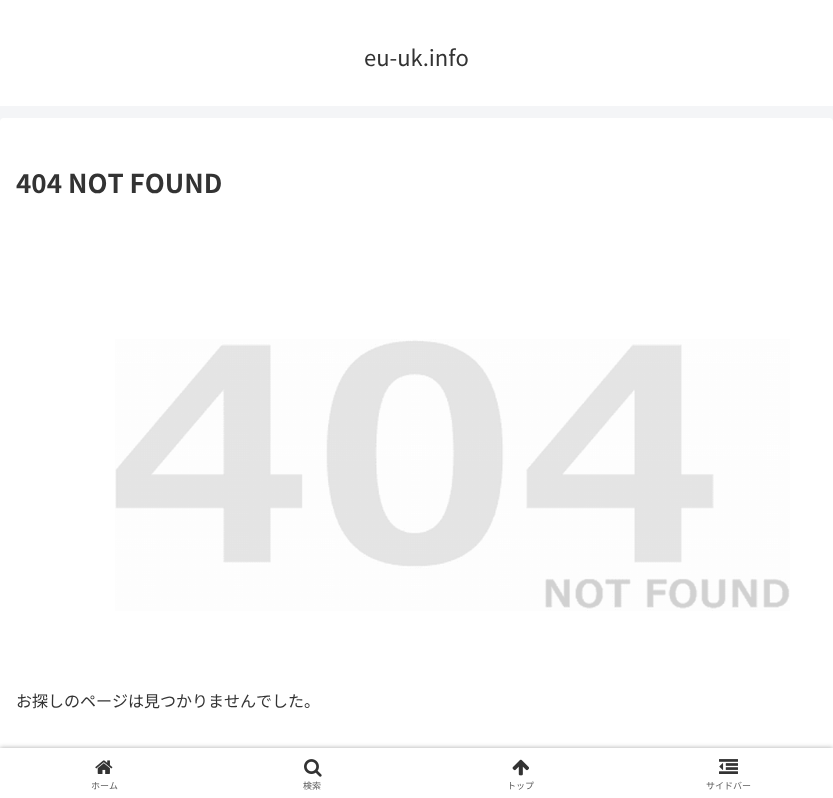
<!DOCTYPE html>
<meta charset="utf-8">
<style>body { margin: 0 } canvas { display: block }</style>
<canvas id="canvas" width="833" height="798"></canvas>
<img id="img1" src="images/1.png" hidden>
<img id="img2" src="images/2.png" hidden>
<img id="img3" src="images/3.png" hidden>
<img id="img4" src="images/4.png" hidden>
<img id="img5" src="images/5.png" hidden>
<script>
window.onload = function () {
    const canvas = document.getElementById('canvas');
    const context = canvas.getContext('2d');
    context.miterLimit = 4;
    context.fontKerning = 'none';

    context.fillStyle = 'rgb(244, 245, 247)';
    context.fillRect(0, 0, 833, 798);
    context.fillStyle = 'rgb(255, 255, 255)';
    context.fillRect(0, 0, 833, 106);
    context.beginPath();
    context.roundRect(0, 118, 833, 657, 4);
    context.fill();
    context.drawImage(document.getElementById('img1'), 115, 339, 675, 272);
    context.fillStyle = 'rgb(169, 169, 169)';
    context.filter = 'blur(2.5px)';
    context.beginPath();
    context.rect(0, 748, 833, 50);
    context.fill();
    context.filter = 'none';
    context.fillStyle = 'rgb(255, 255, 255)';
    context.fillRect(0, 748, 833, 50);
    context.drawImage(document.getElementById('img2'), 95, 760, 18, 14);
    context.drawImage(document.getElementById('img3'), 304, 759, 18, 18);
    context.drawImage(document.getElementById('img4'), 512, 759, 17, 17);
    context.drawImage(document.getElementById('img5'), 719, 759, 19, 15);
    context.font = '22px Noto Sans JP';
    context.fillStyle = 'rgb(51, 51, 51)';
    context.fillText('eu-uk.info', 364, 66);
    context.font = 'bold 26px Noto Sans JP';
    context.fillText('404 NOT FOUND', 16, 193);
    context.font = '16px Noto Sans JP';
    context.fillText('お探しのページは見つかりませんでした。', 16, 707);
    context.font = '9px Noto Sans JP';
    context.fillStyle = 'rgb(92, 92, 92)';
    context.fillText('ホーム', 91, 789);
    context.fillText('検索', 303, 789);
    context.fillText('トップ', 507, 789);
    context.fillText('サイドバー', 706, 789);
};
</script>
